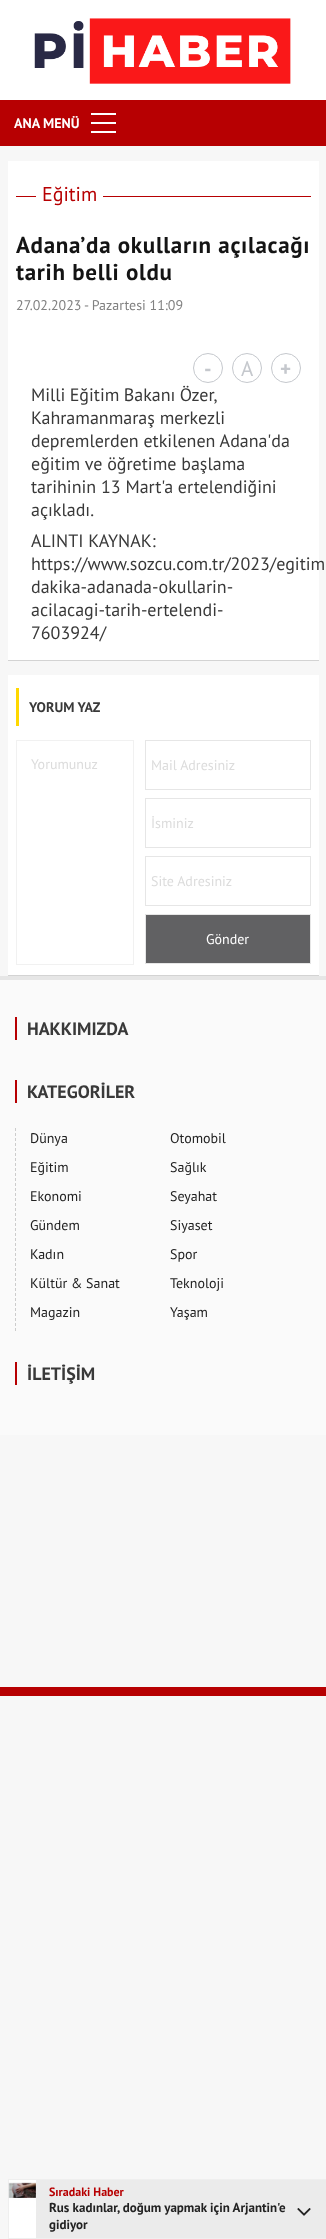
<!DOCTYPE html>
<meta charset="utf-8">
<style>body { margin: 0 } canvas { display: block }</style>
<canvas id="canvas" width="326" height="2239"></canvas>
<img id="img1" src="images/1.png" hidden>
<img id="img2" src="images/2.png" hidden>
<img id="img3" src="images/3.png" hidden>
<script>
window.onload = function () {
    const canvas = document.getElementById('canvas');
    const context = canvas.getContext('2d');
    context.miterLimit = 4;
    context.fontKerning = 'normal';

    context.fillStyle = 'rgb(247, 247, 247)';
    context.fillRect(0, 0, 326, 2239);
    context.fillStyle = 'rgb(255, 255, 255)';
    context.fillRect(0, 0, 326, 100);
    context.drawImage(document.getElementById('img1'), 34, 18, 257, 66);
    context.fillStyle = 'rgb(183, 0, 2)';
    context.fillRect(0, 100, 326, 46);
    context.fillStyle = 'rgb(255, 255, 255)';
    context.fillRect(91, 113, 25, 2);
    context.fillRect(91, 122, 25, 2);
    context.fillRect(91, 131, 25, 2);
    context.fillStyle = 'rgb(211, 211, 211)';
    context.filter = 'blur(0.5px)';
    context.beginPath();
    context.rect(8, 162, 311, 499);
    context.fill();
    context.filter = 'none';
    context.fillStyle = 'rgb(255, 255, 255)';
    context.fillRect(8, 161, 311, 499);
    context.fillStyle = 'rgb(183, 0, 2)';
    context.fillRect(16, 196, 295, 1);
    context.fillStyle = 'rgb(255, 255, 255)';
    context.fillRect(36, 196, 67, 1);
    context.beginPath();
    context.arc(208, 368, 14.5, 0, 2 * Math.PI);
    context.strokeStyle = 'rgb(197, 200, 205)';
    context.stroke();
    context.beginPath();
    context.arc(247, 368, 14.5, 0, 2 * Math.PI);
    context.stroke();
    context.beginPath();
    context.arc(286, 368, 14.5, 0, 2 * Math.PI);
    context.stroke();
    context.fillStyle = 'rgb(230, 230, 230)';
    context.fillRect(0, 976, 326, 4);
    context.fillStyle = 'rgb(211, 211, 211)';
    context.filter = 'blur(0.5px)';
    context.beginPath();
    context.rect(8, 676, 311, 300);
    context.fill();
    context.filter = 'none';
    context.fillStyle = 'rgb(255, 255, 255)';
    context.fillRect(8, 675, 311, 300);
    context.fillStyle = 'rgb(255, 216, 0)';
    context.fillRect(16, 688, 3, 38);
    context.strokeStyle = 'rgb(241, 241, 241)';
    context.strokeRect(16.5, 740.5, 117, 224);
    context.strokeStyle = 'rgb(230, 230, 230)';
    context.strokeRect(145.5, 740.5, 165, 49);
    context.strokeRect(145.5, 798.5, 165, 49);
    context.strokeRect(145.5, 856.5, 165, 49);
    context.fillStyle = 'rgb(97, 97, 99)';
    context.beginPath();
    context.rect(145.5, 914.5, 165, 49);
    context.fill();
    context.stroke();
    context.fillStyle = 'rgb(211, 211, 211)';
    context.filter = 'blur(0.5px)';
    context.beginPath();
    context.rect(8, 2180, 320, 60);
    context.fill();
    context.filter = 'none';
    context.fillStyle = 'rgb(255, 255, 255)';
    context.fillRect(9, 2180, 27, 58);
    context.strokeStyle = 'rgb(239, 239, 239)';
    context.strokeRect(8.5, 2179.5, 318, 59);
    context.drawImage(document.getElementById('img2'), 8, 2182, 28, 16);
    context.fillStyle = 'rgb(235, 235, 235)';
    context.fillRect(36, 2180, 290, 58);
    context.drawImage(document.getElementById('img3'), 297, 2208, 14, 8);
    context.fillStyle = 'rgb(250, 250, 250)';
    context.fillRect(0, 980, 326, 455);
    context.fillStyle = 'rgb(183, 0, 2)';
    context.fillRect(0, 1687, 326, 9);
    context.fillRect(15, 1017, 2, 23);
    context.fillRect(15, 1080, 2, 23);
    context.beginPath();
    context.moveTo(15.5, 1128);
    context.lineTo(15.5, 1331);
    context.strokeStyle = 'rgb(204, 204, 204)';
    context.setLineDash([3, 2]);
    context.stroke();
    context.fillRect(15, 1362, 2, 23);
    context.font = 'bold 14px PT Sans';
    context.fillStyle = 'rgb(255, 255, 255)';
    context.fillText('ANA MENÜ', 14, 128);
    context.font = '20px PT Sans';
    context.fillStyle = 'rgb(183, 0, 2)';
    context.fillText('Eğitim', 42, 201);
    context.letterSpacing = '0.7px';
    context.font = 'bold 23px PT Sans';
    context.fillStyle = 'rgb(20, 20, 20)';
    context.fillText('Adana’da okulların açılacağı', 16, 253);
    context.fillText('tarih belli oldu', 16, 280);
    context.letterSpacing = '0px';
    context.font = '14px PT Sans';
    context.fillStyle = 'rgb(129, 129, 129)';
    context.fillText('27.02.2023 - Pazartesi 11:09', 16, 310);
    context.font = 'bold 21px PT Sans';
    context.fillStyle = 'rgb(197, 200, 205)';
    context.fillText('-', 204, 376);
    context.font = '21px PT Sans';
    context.fillText('A', 241, 376);
    context.font = 'bold 21px PT Sans';
    context.fillText('+', 280, 376);
    context.wordSpacing = '-0.5px';
    context.font = '18px PT Sans';
    context.fillStyle = 'rgb(57, 57, 57)';
    context.fillText('Milli Eğitim Bakanı Özer,', 31, 401);
    context.wordSpacing = '0px';
    context.fillText('Kahramanmaraş merkezli', 31, 424);
    context.fillText('depremlerden etkilenen Adana\'da', 31, 447);
    context.fillText('eğitim ve öğretime başlama', 31, 470);
    context.fillText('tarihinin 13 Mart\'a ertelendiğini', 31, 493);
    context.fillText('açıkladı.', 31, 516);
    context.fillText('ALINTI KAYNAK:', 31, 547);
    context.fillText('https://www.sozcu.com.tr/2023/egitim', 31, 570);
    context.fillText('dakika-adanada-okullarin-', 31, 593);
    context.fillText('acilacagi-tarih-ertelendi-', 31, 616);
    context.fillText('7603924/', 31, 639);
    context.font = 'bold 14px PT Sans';
    context.fillText('YORUM YAZ', 29, 712);
    context.font = '14px PT Sans';
    context.fillStyle = 'rgb(220, 220, 220)';
    context.fillText('Yorumunuz', 31, 769);
    context.fillText('Mail Adresiniz', 151, 770);
    context.fillText('İsminiz', 151, 828);
    context.fillText('Site Adresiniz', 151, 886);
    context.fillStyle = 'rgb(255, 255, 255)';
    context.fillText('Gönder', 206, 944);
    context.font = 'bold 12px PT Sans';
    context.fillStyle = 'rgb(183, 0, 2)';
    context.fillText('Sıradaki Haber', 49, 2196);
    context.font = 'bold 13px PT Sans';
    context.fillStyle = 'rgb(34, 34, 34)';
    context.fillText('Rus kadınlar, doğum yapmak için Arjantin\'e', 49, 2212);
    context.fillText('gidiyor', 49, 2229);
    context.font = 'bold 18px PT Sans';
    context.fillStyle = 'rgb(57, 57, 57)';
    context.fillText('HAKKIMIZDA', 27, 1035);
    context.fillText('KATEGORİLER', 27, 1098);
    context.font = '14px PT Sans';
    context.fillStyle = 'rgb(34, 34, 34)';
    context.fillText('Dünya', 30, 1143);
    context.fillText('Otomobil', 170, 1143);
    context.fillText('Eğitim', 30, 1172);
    context.fillText('Sağlık', 170, 1172);
    context.fillText('Ekonomi', 30, 1201);
    context.fillText('Seyahat', 170, 1201);
    context.fillText('Gündem', 30, 1230);
    context.fillText('Siyaset', 170, 1230);
    context.fillText('Kadın', 30, 1259);
    context.fillText('Spor', 170, 1259);
    context.fillText('Kültür & Sanat', 30, 1288);
    context.fillText('Teknoloji', 170, 1288);
    context.fillText('Magazin', 30, 1317);
    context.fillText('Yaşam', 170, 1317);
    context.font = 'bold 18px PT Sans';
    context.fillStyle = 'rgb(57, 57, 57)';
    context.fillText('İLETİŞİM', 27, 1380);
};
</script>
